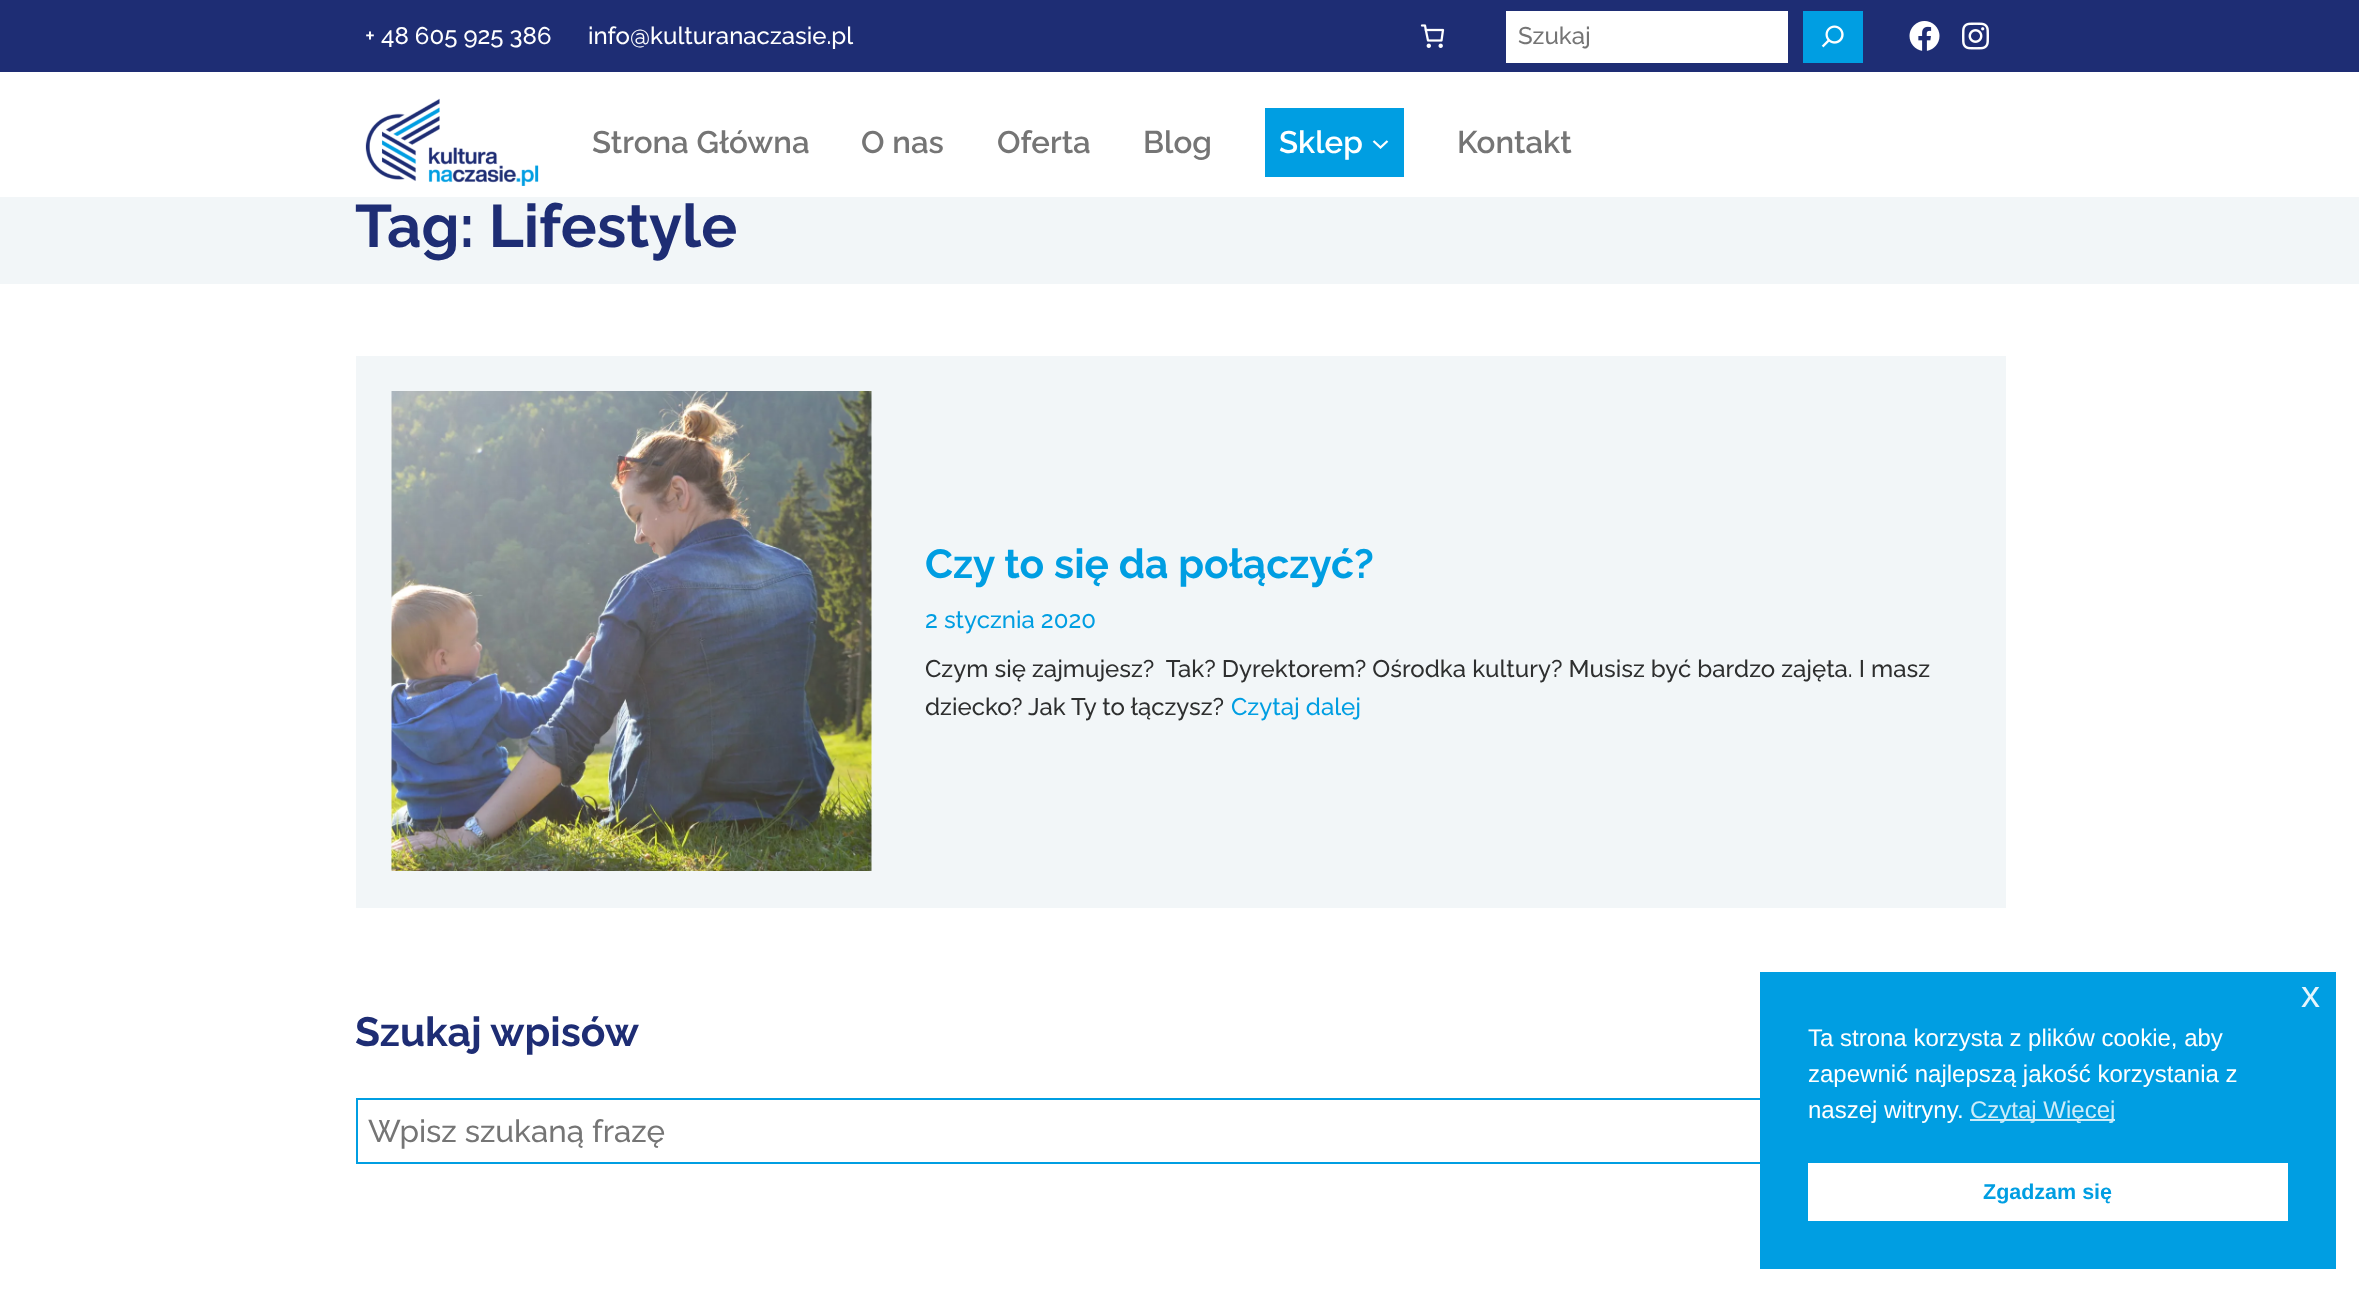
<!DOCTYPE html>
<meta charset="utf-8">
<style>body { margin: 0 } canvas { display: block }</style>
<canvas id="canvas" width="2359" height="1292"></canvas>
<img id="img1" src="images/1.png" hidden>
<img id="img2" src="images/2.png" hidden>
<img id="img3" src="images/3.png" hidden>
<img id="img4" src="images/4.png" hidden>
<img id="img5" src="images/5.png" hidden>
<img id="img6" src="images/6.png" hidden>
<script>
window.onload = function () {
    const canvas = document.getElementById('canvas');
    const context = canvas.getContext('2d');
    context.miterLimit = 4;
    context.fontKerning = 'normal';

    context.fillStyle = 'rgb(255, 255, 255)';
    context.fillRect(0, 0, 2359, 1292);
    context.fillStyle = 'rgb(30, 45, 116)';
    context.fillRect(0, 0, 2359, 72);
    context.drawImage(document.getElementById('img1'), 1420, 24, 25, 24);
    context.fillStyle = 'rgb(255, 255, 255)';
    context.fillRect(1506, 11, 282, 52);
    context.fillStyle = 'rgb(0, 158, 226)';
    context.fillRect(1803, 11, 60, 52);
    context.drawImage(document.getElementById('img2'), 1821, 25, 23, 23);
    context.drawImage(document.getElementById('img3'), 1909, 21, 31, 30);
    context.drawImage(document.getElementById('img4'), 1962, 22, 27, 28);
    context.drawImage(document.getElementById('img5'), 365, 98, 174, 88);
    context.fillRect(1265, 108, 139, 69);
    context.beginPath();
    context.moveTo(1373.5, 141);
    context.lineTo(1380.5, 147.5);
    context.lineTo(1387.5, 141);
    context.strokeStyle = 'rgb(255, 255, 255)';
    context.lineWidth = 2.3;
    context.stroke();
    context.fillStyle = 'rgb(242, 246, 248)';
    context.fillRect(0, 197, 2359, 87);
    context.fillRect(356, 356, 1650, 552);
    context.drawImage(document.getElementById('img6'), 391, 391, 481, 480);
    context.strokeStyle = 'rgb(0, 158, 226)';
    context.lineWidth = 2;
    context.strokeRect(357, 1099, 1567, 64);
    context.fillStyle = 'rgb(0, 158, 226)';
    context.fillRect(1760, 972, 576, 297);
    context.fillStyle = 'rgb(204, 236, 249)';
    context.fillRect(1970, 1119, 145, 2);
    context.fillStyle = 'rgb(255, 255, 255)';
    context.fillRect(1808, 1163, 480, 58);
    context.font = '500 24px Raleway';
    context.fillText('+ 48 605 925 386', 365, 44);
    context.fillText('info@kulturanaczasie.pl', 588, 44);
    context.fillStyle = 'rgb(117, 117, 117)';
    context.fillText('Szukaj', 1518, 44);
    context.font = '600 31.25px Raleway';
    context.fillText('Strona Główna', 592, 153);
    context.fillText('O nas', 861, 153);
    context.fillText('Oferta', 997, 153);
    context.fillText('Blog', 1143, 153);
    context.fillStyle = 'rgb(255, 255, 255)';
    context.fillText('Sklep', 1279, 153);
    context.fillStyle = 'rgb(117, 117, 117)';
    context.fillText('Kontakt', 1457, 153);
    context.font = 'bold 60px Raleway';
    context.fillStyle = 'rgb(30, 45, 116)';
    context.fillText('Tag: Lifestyle', 355, 247);
    context.font = 'bold 40.75px Raleway';
    context.fillStyle = 'rgb(0, 158, 226)';
    context.fillText('Czy to się da połączyć?', 925, 578);
    context.font = '500 24px Raleway';
    context.fillText('2 stycznia 2020', 925, 628);
    context.fillStyle = 'rgb(46, 47, 47)';
    context.fillText('Czym się zajmujesz?  Tak? Dyrektorem? Ośrodka kultury? Musisz być bardzo zajęta. I masz', 925, 677);
    context.fillText('dziecko? Jak Ty to łączysz?', 925, 715);
    context.fillStyle = 'rgb(0, 158, 226)';
    context.fillText('Czytaj dalej', 1231, 715);
    context.font = 'bold 40.75px Raleway';
    context.fillStyle = 'rgb(30, 45, 116)';
    context.fillText('Szukaj wpisów', 355, 1046);
    context.font = '500 31.25px Raleway';
    context.fillStyle = 'rgb(117, 117, 117)';
    context.fillText('Wpisz szukaną frazę', 368, 1142);
    context.font = '38px Liberation Sans';
    context.fillStyle = 'rgb(230, 245, 252)';
    context.fillText('x', 2301, 1007);
    context.font = '24px Liberation Sans';
    context.fillStyle = 'rgb(255, 255, 255)';
    context.fillText('Ta strona korzysta z plików cookie, aby', 1808, 1046);
    context.fillText('zapewnić najlepszą jakość korzystania z', 1808, 1082);
    context.fillText('naszej witryny.', 1808, 1118);
    context.fillStyle = 'rgb(204, 236, 249)';
    context.fillText('Czytaj Więcej', 1970, 1118);
    context.font = 'bold 21.5px Liberation Sans';
    context.fillStyle = 'rgb(0, 158, 226)';
    context.fillText('Zgadzam się', 1983, 1199);
};
</script>
